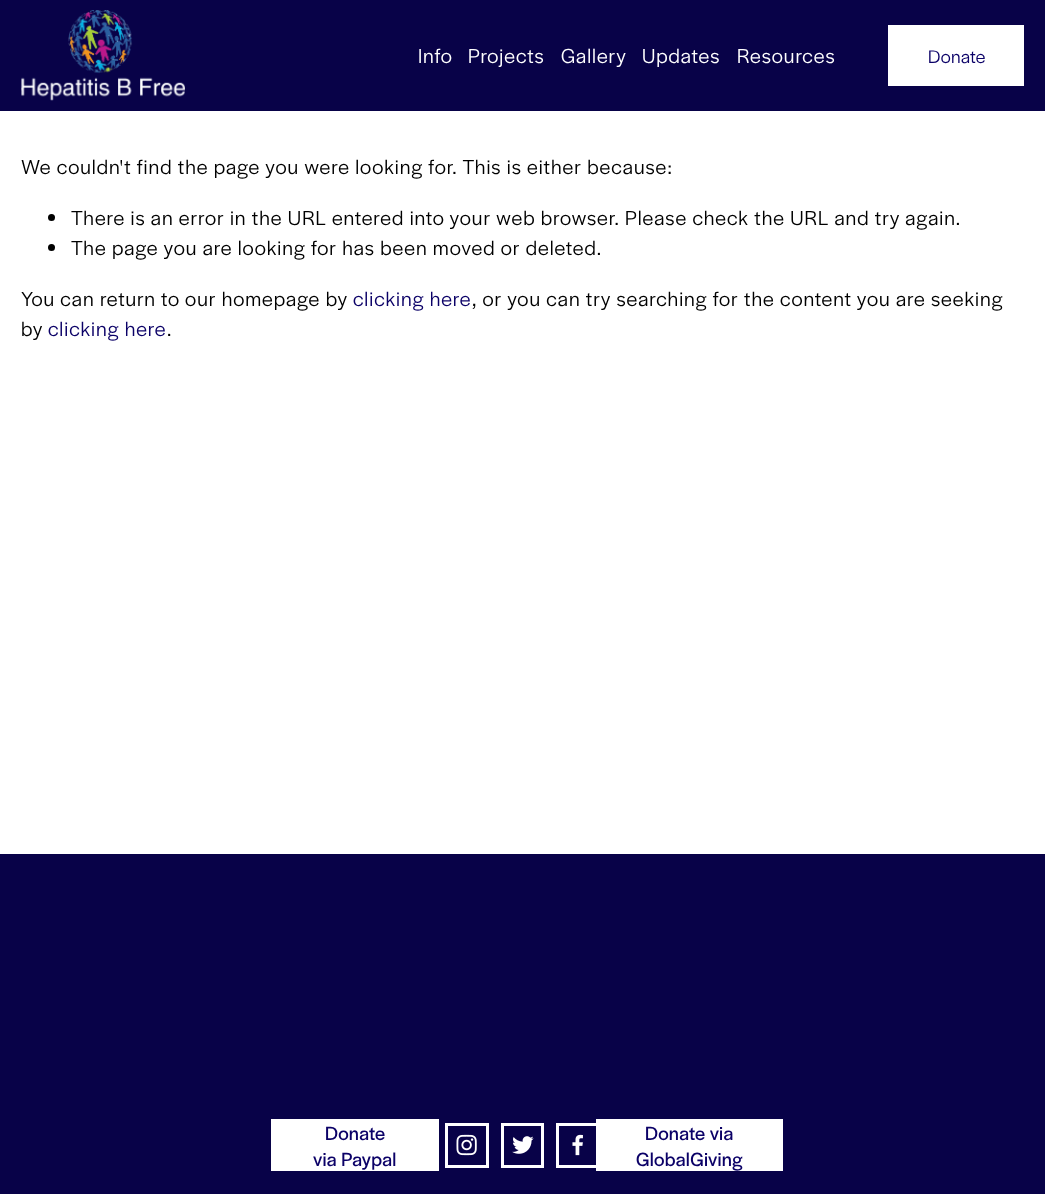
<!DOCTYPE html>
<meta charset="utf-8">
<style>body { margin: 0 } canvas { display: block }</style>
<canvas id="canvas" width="1045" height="1194"></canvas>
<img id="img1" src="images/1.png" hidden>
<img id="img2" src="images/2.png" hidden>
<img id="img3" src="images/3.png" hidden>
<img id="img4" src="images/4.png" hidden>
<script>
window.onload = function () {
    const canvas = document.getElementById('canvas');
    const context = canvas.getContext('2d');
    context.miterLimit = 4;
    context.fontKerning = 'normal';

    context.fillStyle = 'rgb(255, 255, 255)';
    context.fillRect(0, 0, 1045, 1194);
    context.fillStyle = 'rgb(8, 2, 72)';
    context.fillRect(0, 0, 1045, 111);
    context.drawImage(document.getElementById('img1'), 21, 10, 164, 91);
    context.fillStyle = 'rgb(255, 255, 255)';
    context.fillRect(888, 25, 136, 61);
    context.fillStyle = 'rgb(0, 0, 0)';
    context.beginPath();
    context.arc(51.5, 217.5, 3.5, 0, 2 * Math.PI);
    context.fill();
    context.beginPath();
    context.arc(51.5, 247.5, 3.5, 0, 2 * Math.PI);
    context.fill();
    context.fillStyle = 'rgb(8, 2, 72)';
    context.fillRect(0, 854, 1045, 340);
    context.fillStyle = 'rgb(255, 255, 255)';
    context.fillRect(271, 1119, 168, 52);
    context.strokeStyle = 'rgb(255, 255, 255)';
    context.lineWidth = 3;
    context.strokeRect(446.5, 1124.5, 41, 42);
    context.drawImage(document.getElementById('img2'), 456, 1134, 21, 22);
    context.strokeRect(502.5, 1124.5, 40, 42);
    context.drawImage(document.getElementById('img3'), 512, 1136, 22, 18);
    context.strokeRect(557.5, 1124.5, 41, 42);
    context.drawImage(document.getElementById('img4'), 572, 1134, 11, 22);
    context.fillRect(596, 1119, 187, 52);
    context.letterSpacing = '1.05px';
    context.font = '21.25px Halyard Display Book';
    context.fillText('Info', 418, 63);
    context.fillText('Projects', 468, 63);
    context.fillText('Gallery', 561, 63);
    context.fillText('Updates', 642, 63);
    context.fillText('Resources', 737, 63);
    context.letterSpacing = '0.5px';
    context.font = '19px Halyard Display Book';
    context.fillStyle = 'rgb(11, 1, 103)';
    context.fillText('Donate', 928, 63);
    context.letterSpacing = '1.05px';
    context.font = '21.25px Halyard Display Book';
    context.fillStyle = 'rgb(0, 0, 0)';
    context.fillText('We couldn\'t find the page you were looking for. This is either because:', 21, 174);
    context.fillText('There is an error in the URL entered into your web browser. Please check the URL and try again.', 71, 225);
    context.fillText('The page you are looking for has been moved or deleted.', 71, 255);
    context.fillText('You can return to our homepage by', 21, 306);
    context.fillStyle = 'rgb(11, 1, 103)';
    context.fillText('clicking here', 353, 306);
    context.fillStyle = 'rgb(0, 0, 0)';
    context.fillText(', or you can try searching for the content you are seeking', 472, 306);
    context.fillText('by', 21, 336);
    context.fillStyle = 'rgb(11, 1, 103)';
    context.fillText('clicking here', 48, 336);
    context.fillStyle = 'rgb(0, 0, 0)';
    context.fillText('.', 167, 336);
    context.letterSpacing = '0.4px';
    context.font = '20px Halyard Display';
    context.fillStyle = 'rgb(11, 1, 103)';
    context.fillText('Donate', 325, 1140);
    context.fillText('via Paypal', 313, 1166);
    context.fillText('Donate via', 645, 1140);
    context.fillText('GlobalGiving', 636, 1166);
};
</script>
